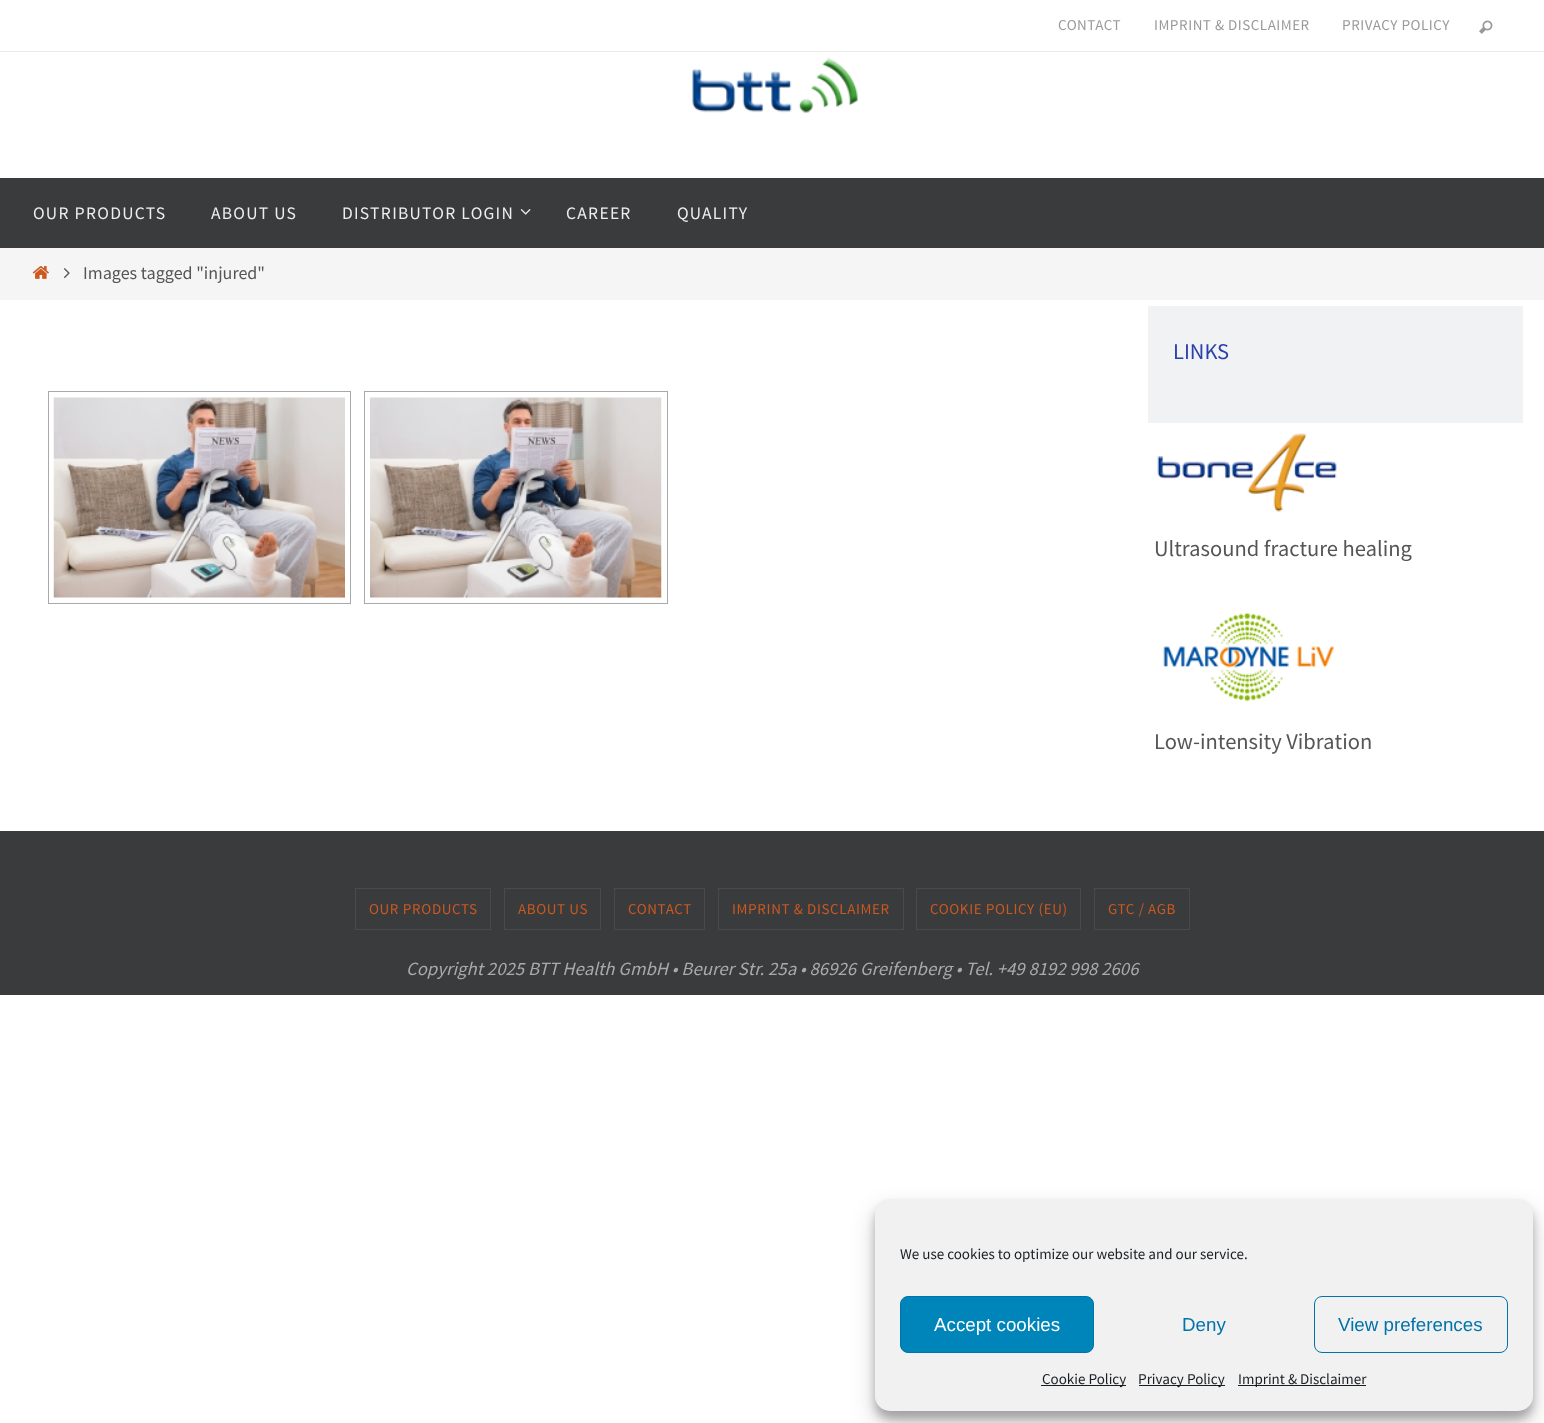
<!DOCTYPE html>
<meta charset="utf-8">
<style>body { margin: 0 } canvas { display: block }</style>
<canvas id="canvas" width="1544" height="1423"></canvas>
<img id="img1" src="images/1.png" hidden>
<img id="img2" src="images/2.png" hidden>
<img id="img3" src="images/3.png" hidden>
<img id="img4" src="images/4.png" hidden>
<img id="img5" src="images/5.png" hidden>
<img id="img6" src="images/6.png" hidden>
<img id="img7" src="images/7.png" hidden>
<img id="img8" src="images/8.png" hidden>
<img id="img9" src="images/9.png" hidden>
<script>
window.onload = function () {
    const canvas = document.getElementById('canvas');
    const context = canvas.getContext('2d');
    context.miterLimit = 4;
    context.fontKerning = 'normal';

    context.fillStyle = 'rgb(255, 255, 255)';
    context.fillRect(0, 0, 1544, 1423);
    context.fillStyle = 'rgb(235, 235, 235)';
    context.fillRect(0, 51, 1544, 1);
    context.drawImage(document.getElementById('img1'), 1479, 20, 14, 14);
    context.drawImage(document.getElementById('img2'), 692, 57, 166, 56);
    context.fillStyle = 'rgb(58, 59, 61)';
    context.fillRect(0, 178, 1544, 70);
    context.drawImage(document.getElementById('img3'), 520, 209, 11, 6);
    context.fillStyle = 'rgb(245, 245, 245)';
    context.fillRect(0, 248, 1544, 52);
    context.drawImage(document.getElementById('img4'), 32, 266, 17, 13);
    context.drawImage(document.getElementById('img5'), 63, 268, 7, 10);
    context.strokeStyle = 'rgb(169, 169, 169)';
    context.strokeRect(48.5, 391.5, 302, 212);
    context.drawImage(document.getElementById('img6'), 53, 397, 292, 201);
    context.strokeRect(364.5, 391.5, 303, 212);
    context.drawImage(document.getElementById('img7'), 370, 397, 292, 201);
    context.fillStyle = 'rgb(241, 242, 243)';
    context.fillRect(1148, 306, 375, 117);
    context.drawImage(document.getElementById('img8'), 1157, 433, 180, 79);
    context.drawImage(document.getElementById('img9'), 1163, 612, 171, 90);
    context.fillStyle = 'rgb(58, 59, 61)';
    context.fillRect(0, 831, 1544, 164);
    context.strokeStyle = 'rgb(73, 74, 76)';
    context.strokeRect(355.5, 888.5, 135, 41);
    context.strokeRect(504.5, 888.5, 96, 41);
    context.strokeRect(614.5, 888.5, 90, 41);
    context.strokeRect(718.5, 888.5, 185, 41);
    context.strokeRect(916.5, 888.5, 164, 41);
    context.strokeRect(1094.5, 888.5, 95, 41);
    context.fillStyle = 'rgba(0, 0, 0, 0.23)';
    context.filter = 'blur(4px)';
    context.beginPath();
    context.roundRect(875, 1206, 658, 213, 15);
    context.fill();
    context.filter = 'none';
    context.fillStyle = 'rgba(0, 0, 0, 0.19)';
    context.filter = 'blur(12.5px)';
    context.beginPath();
    context.roundRect(875, 1211, 658, 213, 15);
    context.fill();
    context.filter = 'none';
    context.fillStyle = 'rgb(241, 241, 241)';
    context.beginPath();
    context.roundRect(875, 1199, 658, 212, 15);
    context.fill();
    context.fillStyle = 'rgb(0, 133, 186)';
    context.beginPath();
    context.roundRect(900.5, 1296.5, 193, 56, 7.5);
    context.fill();
    context.strokeStyle = 'rgb(0, 115, 170)';
    context.stroke();
    context.beginPath();
    context.roundRect(1314.5, 1296.5, 193, 56, 7.5);
    context.stroke();
    context.fillStyle = 'rgb(25, 30, 35)';
    context.fillRect(1041, 1385, 85, 1);
    context.fillRect(1139, 1385, 86, 1);
    context.fillRect(1238, 1385, 128, 1);
    context.letterSpacing = '0.5px';
    context.font = '15px Source Sans Pro';
    context.fillStyle = 'rgb(153, 153, 153)';
    context.fillText('CONTACT', 1058, 30);
    context.fillText('IMPRINT & DISCLAIMER', 1154, 30);
    context.fillText('PRIVACY POLICY', 1342, 30);
    context.letterSpacing = '1.25px';
    context.font = '17.5px Source Sans Pro';
    context.fillStyle = 'rgb(238, 238, 238)';
    context.fillText('OUR PRODUCTS', 33, 219);
    context.fillText('ABOUT US', 211, 219);
    context.fillText('DISTRIBUTOR LOGIN', 342, 219);
    context.fillText('CAREER', 566, 219);
    context.fillText('QUALITY', 677, 219);
    context.letterSpacing = '0px';
    context.font = '18px Source Sans Pro';
    context.fillStyle = 'rgb(85, 85, 85)';
    context.fillText('Images tagged "injured"', 83, 279);
    context.font = '22.5px Source Sans Pro';
    context.fillStyle = 'rgb(41, 65, 173)';
    context.fillText('LINKS', 1173, 359);
    context.fillStyle = 'rgb(85, 85, 85)';
    context.fillText('Ultrasound fracture healing', 1154, 556);
    context.fillText('Low-intensity Vibration', 1154, 749);
    context.letterSpacing = '0.6px';
    context.font = '15px Source Sans Pro';
    context.fillStyle = 'rgb(203, 89, 32)';
    context.fillText('OUR PRODUCTS', 369, 914);
    context.fillText('ABOUT US', 518, 914);
    context.fillText('CONTACT', 628, 914);
    context.fillText('IMPRINT & DISCLAIMER', 732, 914);
    context.fillText('COOKIE POLICY (EU)', 930, 914);
    context.fillText('GTC / AGB', 1108, 914);
    context.letterSpacing = '0px';
    context.font = 'italic 18.75px Source Sans Pro';
    context.fillStyle = 'rgb(170, 170, 170)';
    context.fillText('Copyright 2025 BTT Health GmbH • Beurer Str. 25a • 86926 Greifenberg • Tel. +49 8192 998 2606', 406, 975);
    context.font = '15px Source Sans Pro';
    context.fillStyle = 'rgb(25, 30, 35)';
    context.fillText('We use cookies to optimize our website and our service.', 900, 1259);
    context.font = '18.75px Liberation Sans';
    context.fillStyle = 'rgb(255, 255, 255)';
    context.fillText('Accept cookies', 934, 1331);
    context.fillStyle = 'rgb(0, 115, 170)';
    context.fillText('Deny', 1182, 1331);
    context.fillText('View preferences', 1338, 1331);
    context.font = '15px Source Sans Pro';
    context.fillStyle = 'rgb(25, 30, 35)';
    context.fillText('Cookie Policy', 1042, 1384);
    context.fillText('Privacy Policy', 1138, 1384);
    context.fillText('Imprint & Disclaimer', 1238, 1384);
};
</script>
